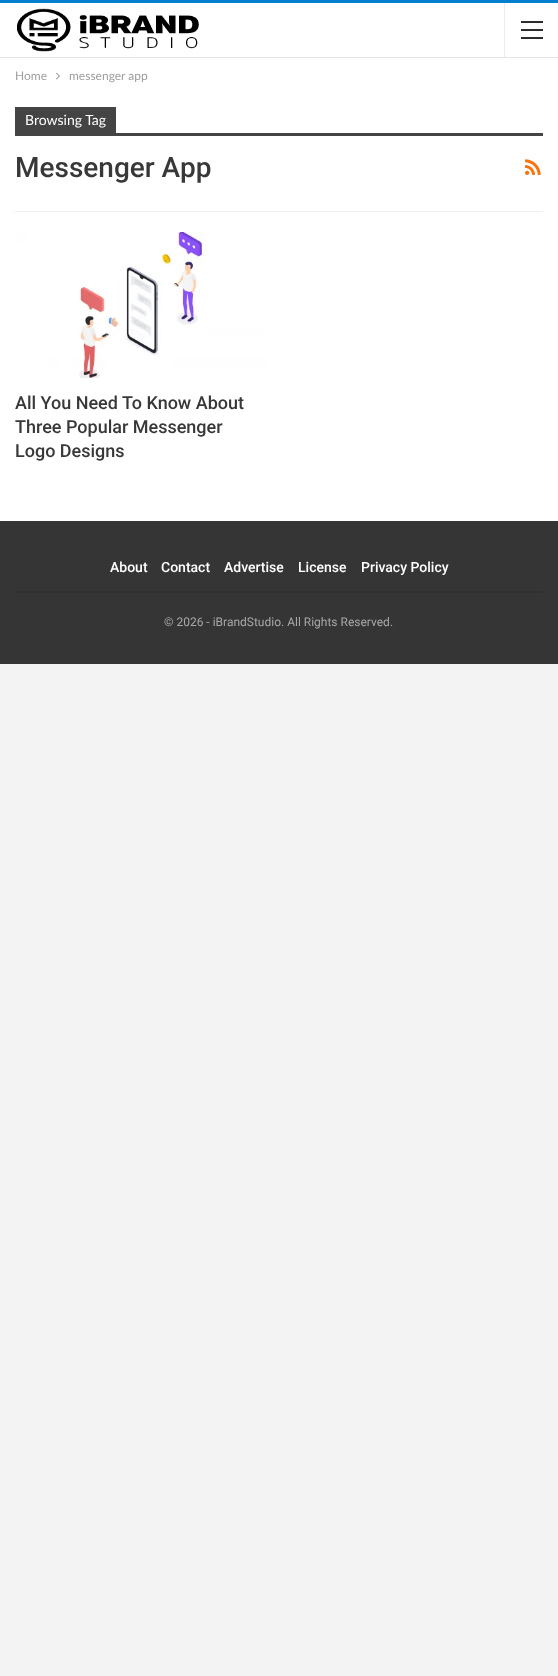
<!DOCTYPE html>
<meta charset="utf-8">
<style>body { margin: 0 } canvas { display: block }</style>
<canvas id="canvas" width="558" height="1676"></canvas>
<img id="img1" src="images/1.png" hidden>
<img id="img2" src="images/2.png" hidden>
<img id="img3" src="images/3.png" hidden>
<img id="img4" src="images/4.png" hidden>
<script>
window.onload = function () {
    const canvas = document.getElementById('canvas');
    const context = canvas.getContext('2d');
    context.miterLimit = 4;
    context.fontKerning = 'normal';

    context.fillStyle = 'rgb(243, 243, 243)';
    context.fillRect(0, 0, 558, 1676);
    context.fillStyle = 'rgb(0, 128, 206)';
    context.fillRect(0, 0, 558, 3);
    context.fillStyle = 'rgb(255, 255, 255)';
    context.fillRect(0, 3, 558, 518);
    context.fillStyle = 'rgb(229, 229, 229)';
    context.fillRect(0, 57, 558, 1);
    context.drawImage(document.getElementById('img1'), 17, 8, 182, 44);
    context.fillStyle = 'rgb(237, 237, 237)';
    context.fillRect(504, 3, 1, 54);
    context.fillStyle = 'rgb(44, 44, 44)';
    context.fillRect(521, 29, 22, 2);
    context.fillRect(521, 21, 22, 2);
    context.fillRect(521, 37, 22, 2);
    context.drawImage(document.getElementById('img2'), 56, 72, 4, 8);
    context.fillStyle = 'rgb(240, 240, 240)';
    context.fillRect(15, 211, 528, 1);
    context.fillStyle = 'rgb(68, 68, 68)';
    context.fillRect(15, 107, 101, 26);
    context.fillRect(15, 133, 528, 3);
    context.drawImage(document.getElementById('img3'), 525, 159, 16, 16);
    context.drawImage(document.getElementById('img4'), 15, 232, 251, 146);
    context.fillStyle = 'rgb(53, 53, 53)';
    context.fillRect(0, 521, 558, 143);
    context.fillStyle = 'rgb(47, 47, 47)';
    context.fillRect(15, 591, 528, 2);
    context.font = '12px Lato';
    context.fillStyle = 'rgb(158, 158, 158)';
    context.fillText('Home', 15, 80);
    context.fillText('messenger app', 69, 80);
    context.font = '14px Lato';
    context.fillStyle = 'rgb(255, 255, 255)';
    context.fillText('Browsing Tag', 25, 125);
    context.font = '500 28px Roboto';
    context.fillStyle = 'rgb(56, 56, 56)';
    context.fillText('Messenger App', 15, 177);
    context.font = '500 18px Roboto';
    context.fillText('All You Need To Know About', 15, 409);
    context.fillText('Three Popular Messenger', 15, 433);
    context.fillText('Logo Designs', 15, 457);
    context.font = '500 14px Roboto';
    context.fillStyle = 'rgb(255, 255, 255)';
    context.fillText('About', 110, 572);
    context.fillText('Contact', 161, 572);
    context.fillText('Advertise', 224, 572);
    context.fillText('License', 298, 572);
    context.fillText('Privacy Policy', 361, 572);
    context.font = '12px Roboto';
    context.fillStyle = 'rgb(168, 168, 168)';
    context.fillText('© 2026 - iBrandStudio. All Rights Reserved.', 164, 626);
};
</script>
